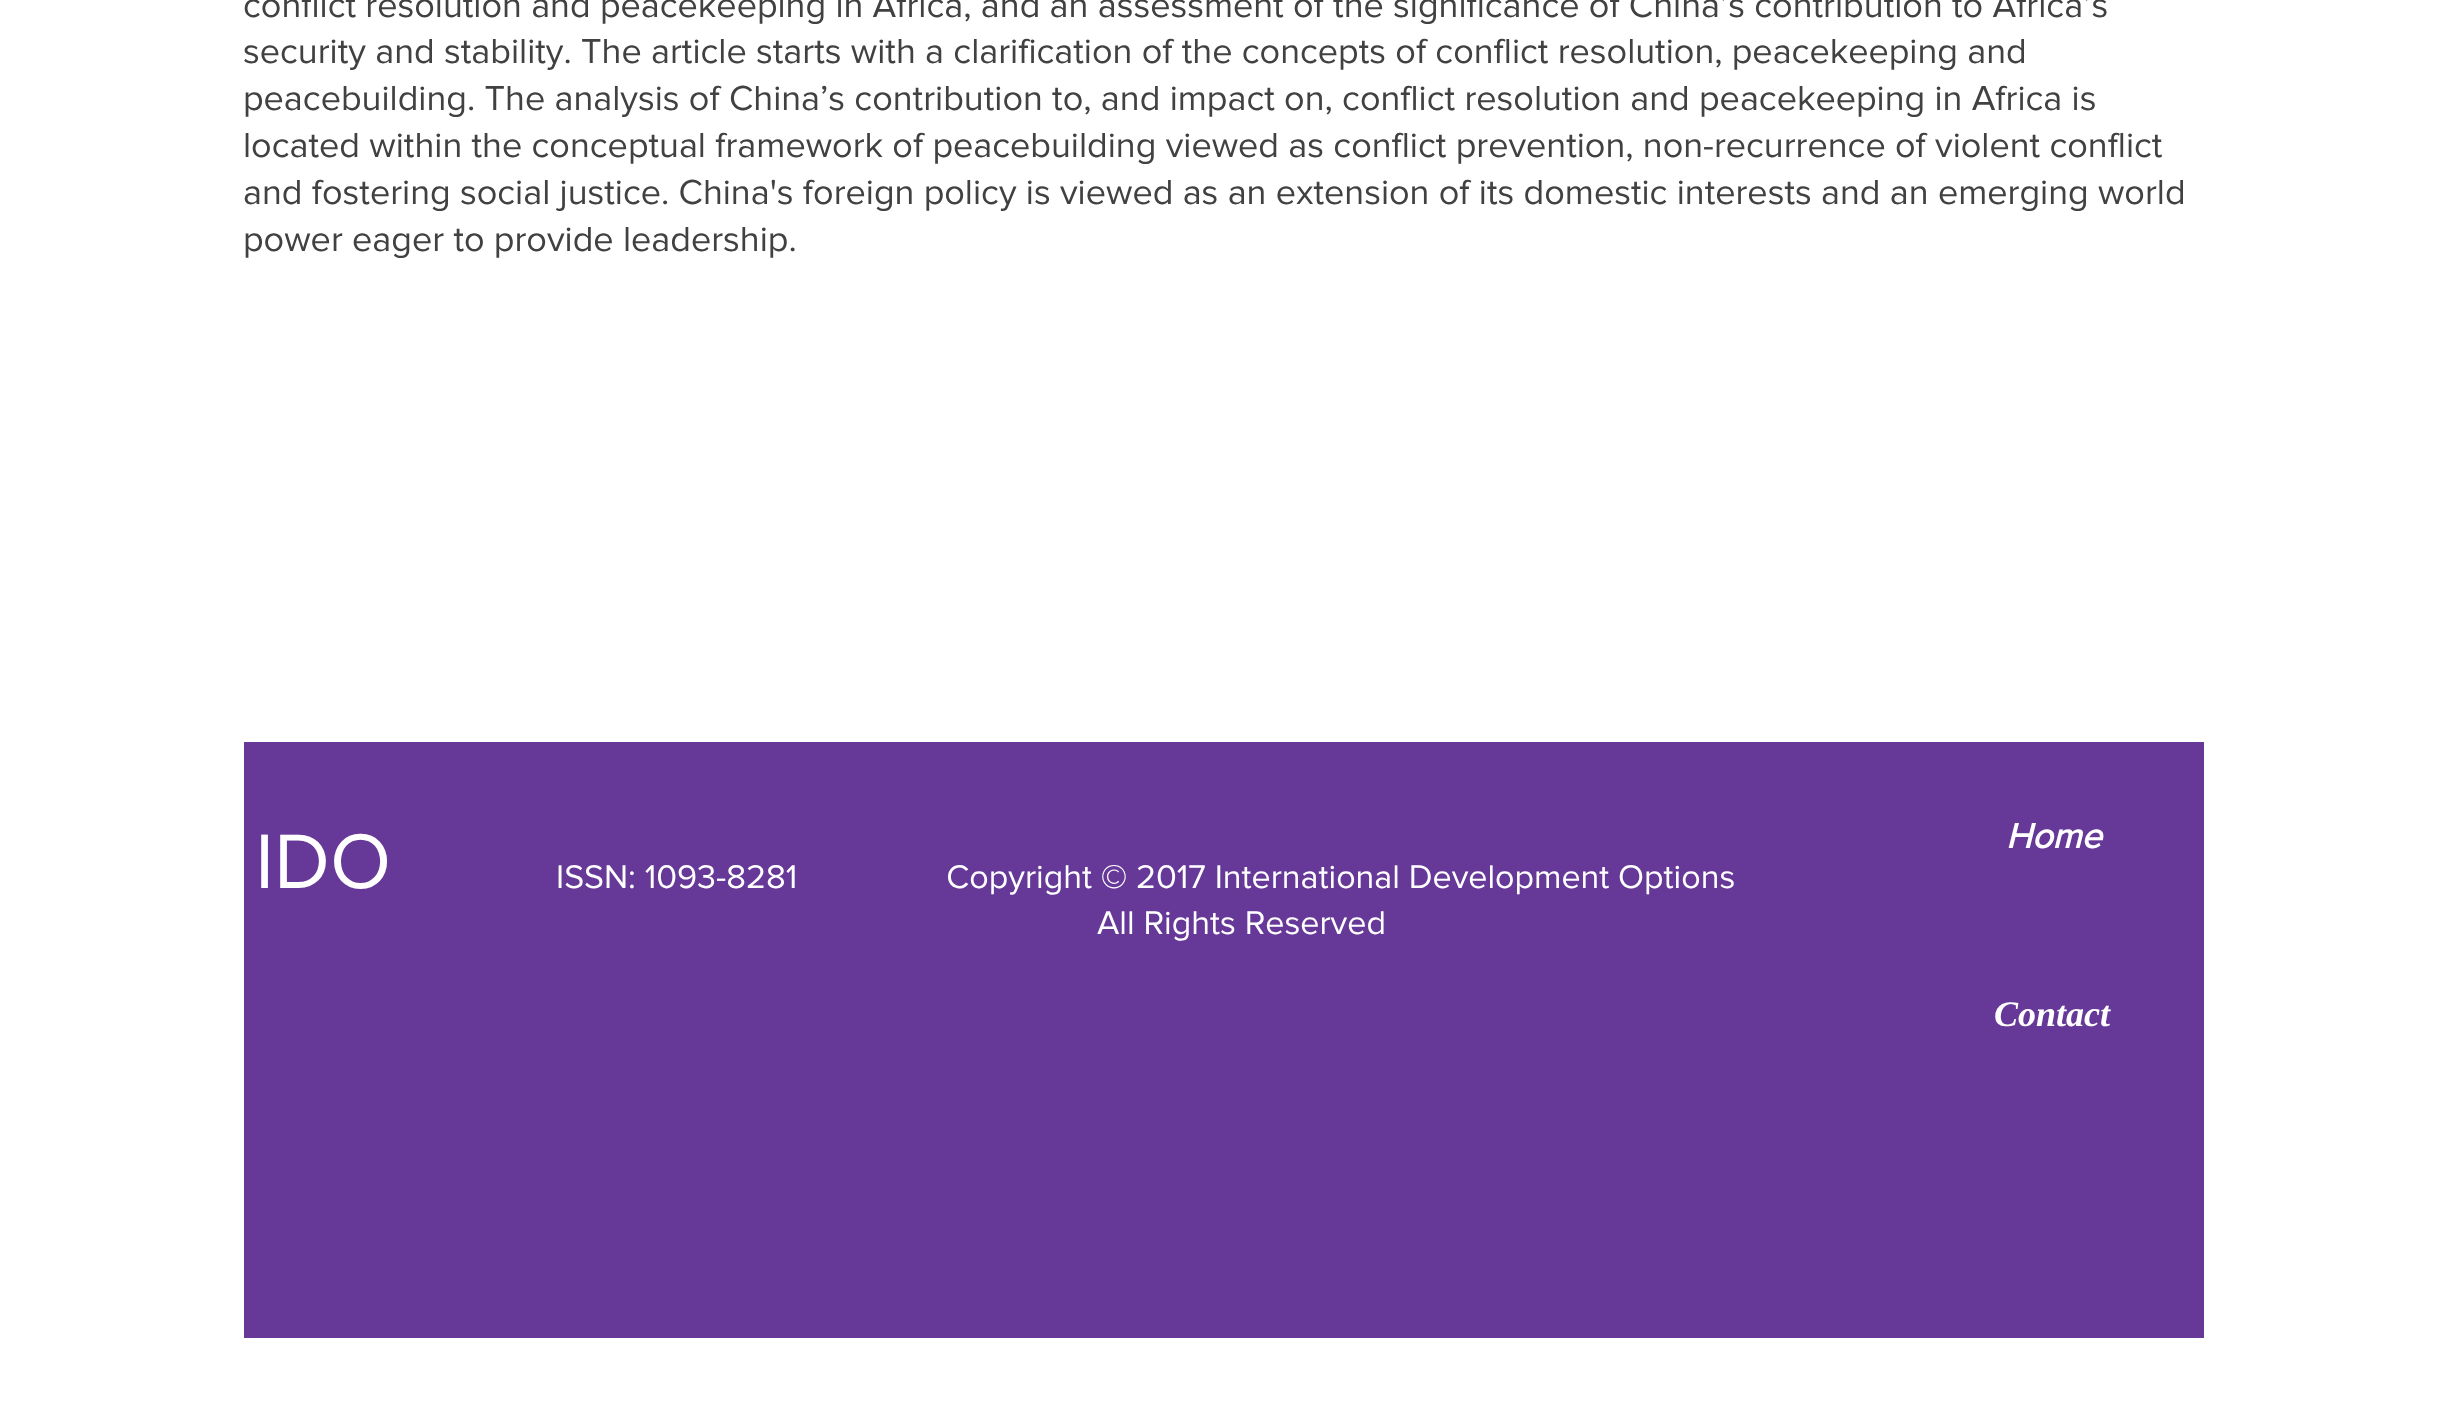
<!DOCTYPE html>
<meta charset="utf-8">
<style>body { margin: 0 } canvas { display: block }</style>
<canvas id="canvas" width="2446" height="1421"></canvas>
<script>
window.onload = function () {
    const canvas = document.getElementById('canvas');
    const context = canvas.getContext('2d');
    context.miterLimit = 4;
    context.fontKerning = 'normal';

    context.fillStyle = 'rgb(255, 255, 255)';
    context.fillRect(0, 0, 2446, 1421);
    context.fillStyle = 'rgb(102, 56, 152)';
    context.fillRect(244, 742, 1960, 596);
    context.font = '36px "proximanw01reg"';
    context.fillStyle = 'rgb(65, 65, 65)';
    context.fillText('conflict resolution and peacekeeping in Africa, and an assessment of the significance of China’s contribution to Africa’s', 243, 17);
    context.fillText('security and stability. The article starts with a clarification of the concepts of conflict resolution, peacekeeping and', 243, 63);
    context.fillText('peacebuilding. The analysis of China’s contribution to, and impact on, conflict resolution and peacekeeping in Africa is', 243, 110);
    context.fillText('located within the conceptual framework of peacebuilding viewed as conflict prevention, non-recurrence of violent conflict', 243, 157);
    context.fillText('and fostering social justice. China\'s foreign policy is viewed as an extension of its domestic interests and an emerging world', 243, 204);
    context.fillText('power eager to provide leadership.', 243, 251);
    context.font = '80px "proximanw01reg"';
    context.fillStyle = 'rgb(255, 255, 255)';
    context.fillText('IDO', 255, 888);
    context.font = '34px "proximanw01reg"';
    context.fillText('ISSN: 1093-8281                 Copyright © 2017 International Development Options', 556, 888);
    context.fillText('All Rights Reserved', 1097, 934);
    context.font = 'italic bold 36px "proximanw01reg"';
    context.fillText('Home', 2006, 848);
    context.font = 'italic bold 36px Liberation Serif';
    context.fillText('Contact', 1994, 1026);
};
</script>
